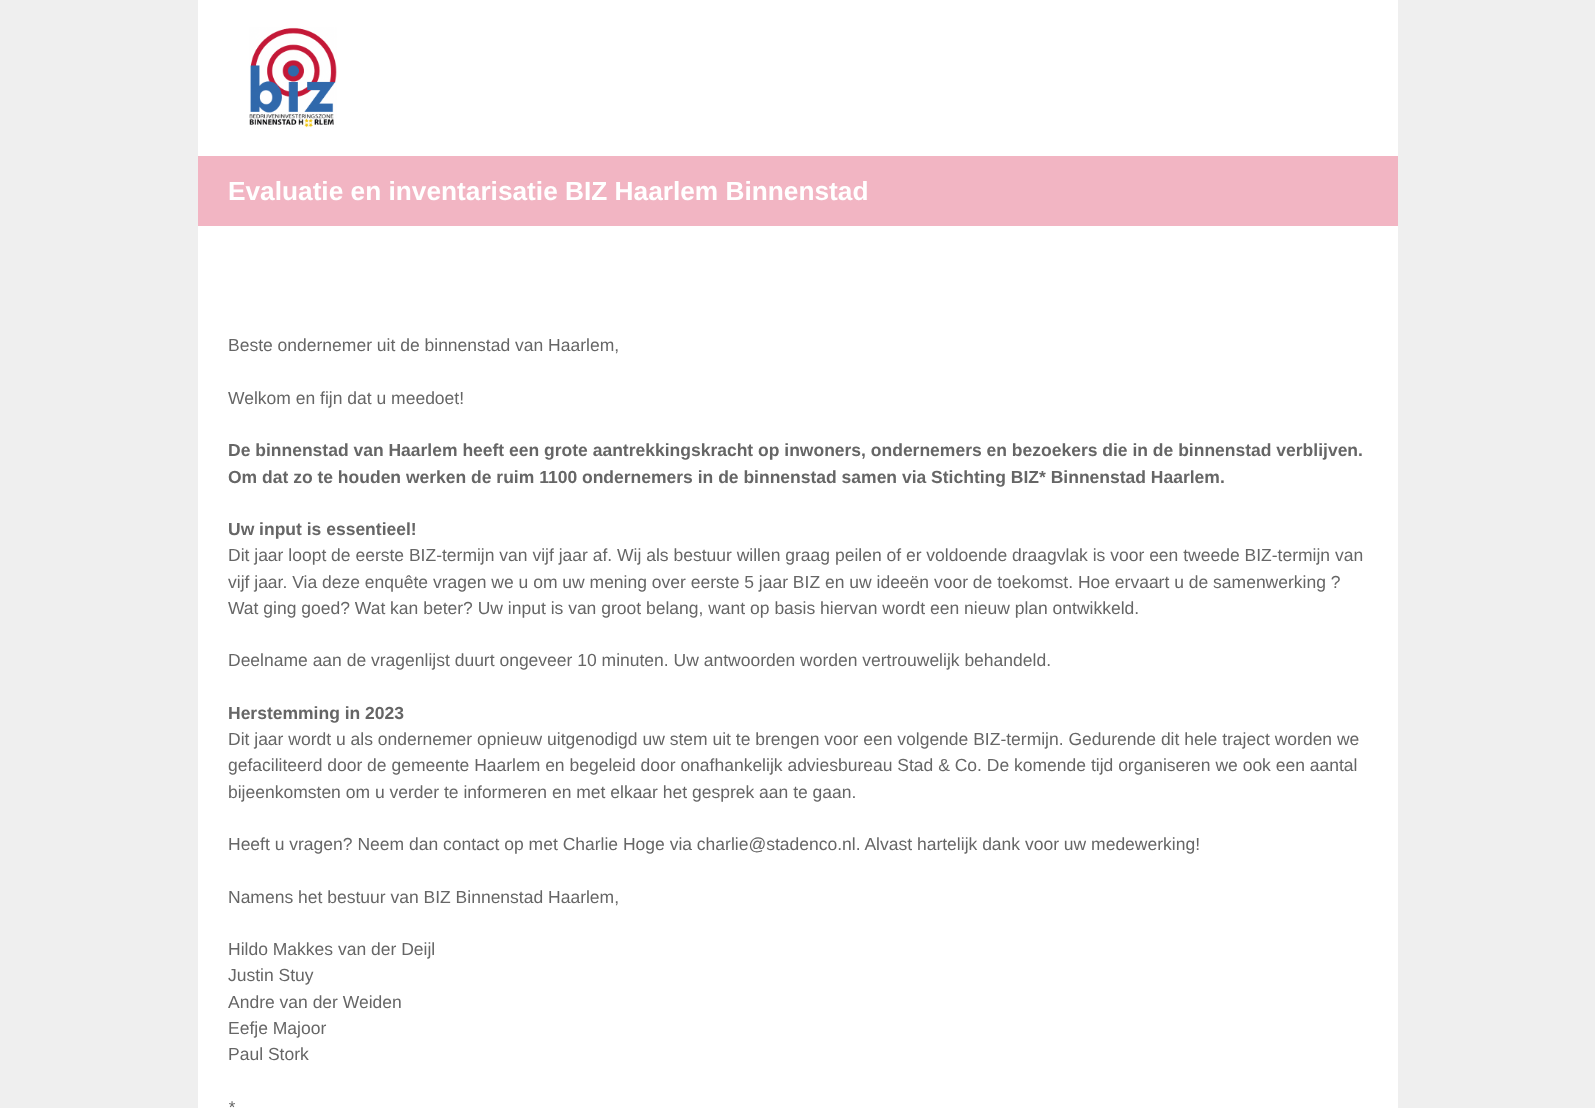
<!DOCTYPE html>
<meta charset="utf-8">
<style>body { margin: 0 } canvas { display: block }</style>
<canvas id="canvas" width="1595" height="1108"></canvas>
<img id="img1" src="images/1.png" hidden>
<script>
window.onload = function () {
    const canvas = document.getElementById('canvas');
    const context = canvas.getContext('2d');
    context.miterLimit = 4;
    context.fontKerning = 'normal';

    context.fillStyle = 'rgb(239, 239, 239)';
    context.fillRect(0, 0, 1595, 1108);
    context.fillStyle = 'rgb(255, 255, 255)';
    context.fillRect(198, 0, 1200, 1108);
    context.drawImage(document.getElementById('img1'), 249, 27, 88, 101);
    context.fillStyle = 'rgb(242, 181, 195)';
    context.fillRect(198, 156, 1200, 70);
    context.font = 'bold 26.25px Liberation Sans';
    context.fillStyle = 'rgb(255, 255, 255)';
    context.fillText('Evaluatie en inventarisatie BIZ Haarlem Binnenstad', 228, 200);
    context.font = '17.5px Liberation Sans';
    context.fillStyle = 'rgb(102, 102, 102)';
    context.fillText('Beste ondernemer uit de binnenstad van Haarlem,', 228, 351);
    context.fillText('Welkom en fijn dat u meedoet!', 228, 404);
    context.font = 'bold 17.5px Liberation Sans';
    context.fillText('De binnenstad van Haarlem heeft een grote aantrekkingskracht op inwoners, ondernemers en bezoekers die in de binnenstad verblijven.', 228, 456);
    context.fillText('Om dat zo te houden werken de ruim 1100 ondernemers in de binnenstad samen via Stichting BIZ* Binnenstad Haarlem.', 228, 483);
    context.fillText('Uw input is essentieel!', 228, 535);
    context.font = '17.5px Liberation Sans';
    context.fillText('Dit jaar loopt de eerste BIZ-termijn van vijf jaar af. Wij als bestuur willen graag peilen of er voldoende draagvlak is voor een tweede BIZ-termijn van', 228, 561);
    context.fillText('vijf jaar. Via deze enquête vragen we u om uw mening over eerste 5 jaar BIZ en uw ideeën voor de toekomst. Hoe ervaart u de samenwerking ?', 228, 588);
    context.fillText('Wat ging goed? Wat kan beter? Uw input is van groot belang, want op basis hiervan wordt een nieuw plan ontwikkeld.', 228, 614);
    context.fillText('Deelname aan de vragenlijst duurt ongeveer 10 minuten. Uw antwoorden worden vertrouwelijk behandeld.', 228, 666);
    context.font = 'bold 17.5px Liberation Sans';
    context.fillText('Herstemming in 2023', 228, 719);
    context.font = '17.5px Liberation Sans';
    context.fillText('Dit jaar wordt u als ondernemer opnieuw uitgenodigd uw stem uit te brengen voor een volgende BIZ-termijn. Gedurende dit hele traject worden we', 228, 745);
    context.fillText('gefaciliteerd door de gemeente Haarlem en begeleid door onafhankelijk adviesbureau Stad & Co. De komende tijd organiseren we ook een aantal', 228, 771);
    context.fillText('bijeenkomsten om u verder te informeren en met elkaar het gesprek aan te gaan.', 228, 798);
    context.fillText('Heeft u vragen? Neem dan contact op met Charlie Hoge via charlie@stadenco.nl. Alvast hartelijk dank voor uw medewerking!', 228, 850);
    context.fillText('Namens het bestuur van BIZ Binnenstad Haarlem,', 228, 903);
    context.fillText('Hildo Makkes van der Deijl', 228, 955);
    context.fillText('Justin Stuy', 228, 981);
    context.fillText('Andre van der Weiden', 228, 1008);
    context.fillText('Eefje Majoor', 228, 1034);
    context.fillText('Paul Stork', 228, 1060);
    context.font = 'italic 17px Liberation Sans';
    context.fillText('*', 228, 1113);
};
</script>
